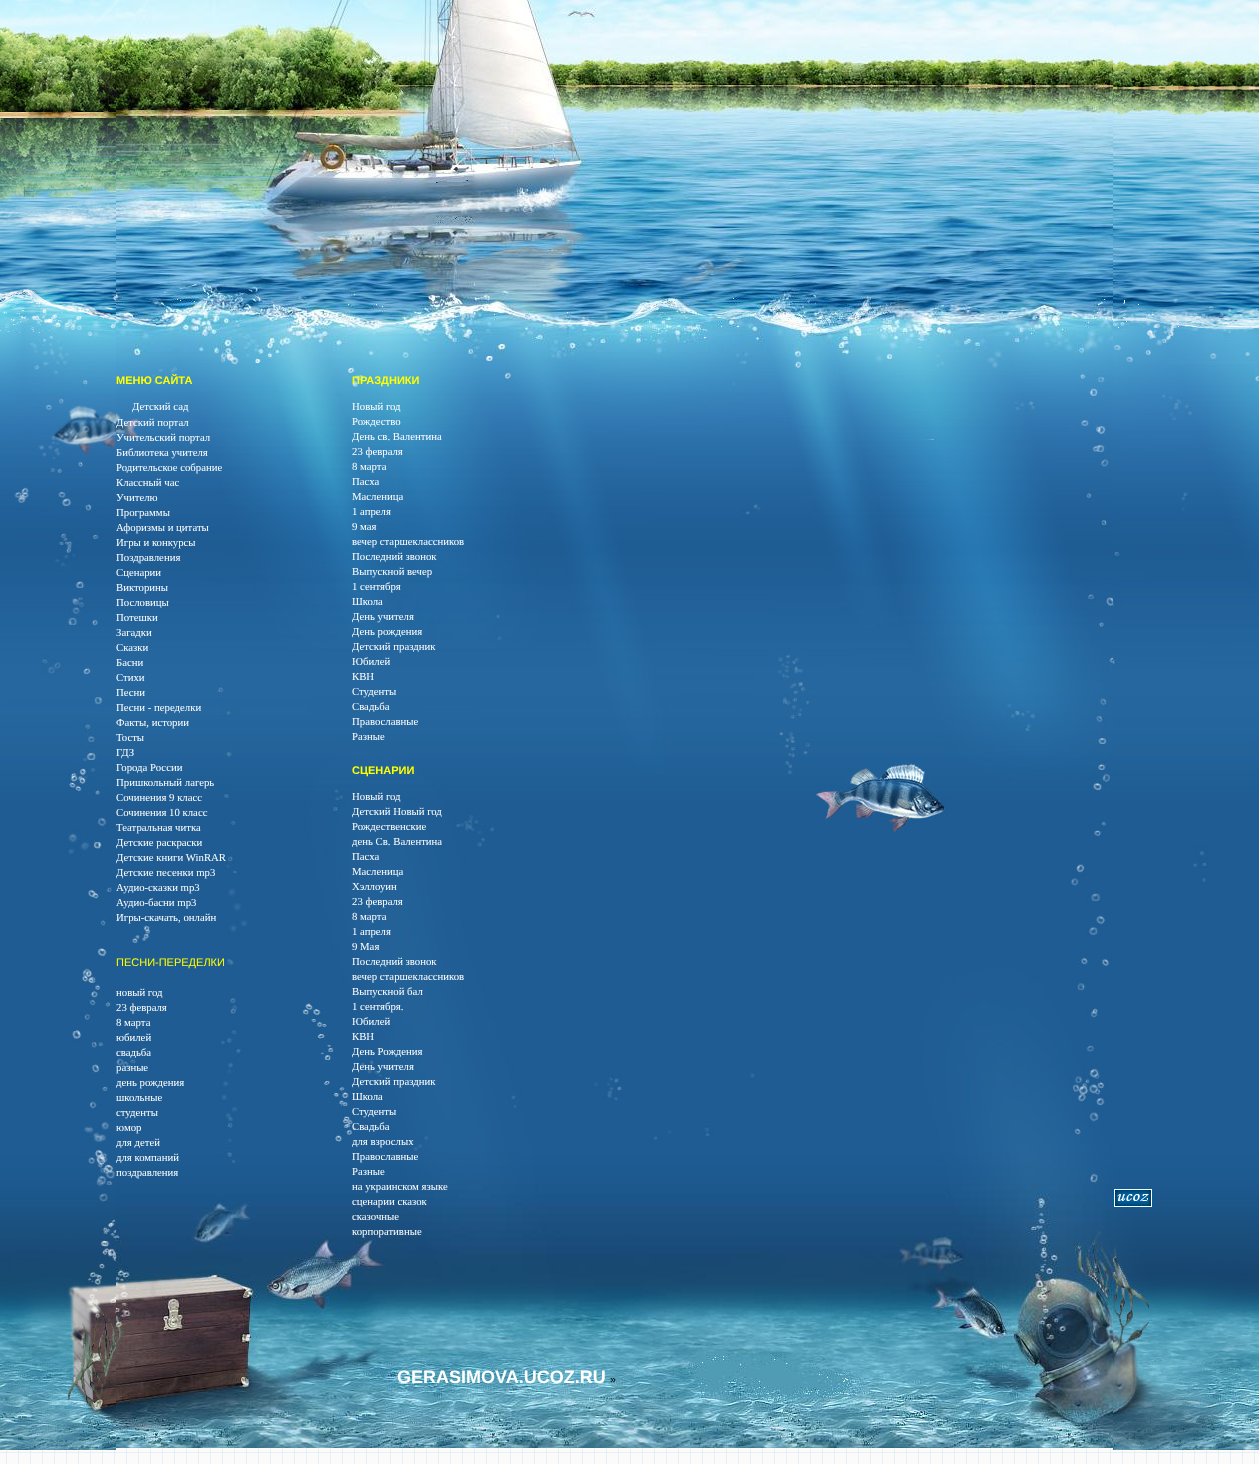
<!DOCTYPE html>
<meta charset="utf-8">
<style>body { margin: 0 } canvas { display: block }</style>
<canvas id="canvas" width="1259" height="1464"></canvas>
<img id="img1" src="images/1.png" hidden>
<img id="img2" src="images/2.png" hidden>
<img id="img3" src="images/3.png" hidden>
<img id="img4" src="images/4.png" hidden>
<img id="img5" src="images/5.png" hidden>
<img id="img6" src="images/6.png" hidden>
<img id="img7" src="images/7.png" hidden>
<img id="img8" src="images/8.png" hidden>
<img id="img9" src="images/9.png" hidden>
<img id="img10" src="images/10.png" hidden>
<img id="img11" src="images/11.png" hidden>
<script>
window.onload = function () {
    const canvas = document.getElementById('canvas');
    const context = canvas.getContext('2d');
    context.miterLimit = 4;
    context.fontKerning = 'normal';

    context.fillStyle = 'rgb(255, 255, 255)';
    context.fillRect(0, 0, 1259, 1464);
    context.drawImage(document.getElementById('img1'), 0, 1448, 1259, 16);
    context.drawImage(document.getElementById('img2'), 0, 0, 116, 356);
    context.drawImage(document.getElementById('img3'), 0, 356, 116, 832);
    context.drawImage(document.getElementById('img4'), 0, 1188, 116, 262);
    context.drawImage(document.getElementById('img5'), 116, 0, 997, 354);
    context.drawImage(document.getElementById('img6'), 116, 354, 997, 832);
    context.drawImage(document.getElementById('img7'), 116, 1186, 997, 262);
    context.drawImage(document.getElementById('img8'), 1113, 0, 146, 356);
    context.drawImage(document.getElementById('img9'), 1113, 356, 146, 832);
    context.drawImage(document.getElementById('img10'), 1113, 1188, 146, 262);
    context.drawImage(document.getElementById('img11'), 1113, 1188, 40, 20);
    context.font = 'bold 11px Liberation Sans';
    context.fillStyle = 'rgb(255, 255, 0)';
    context.fillText('МЕНЮ САЙТА', 116, 384);
    context.font = '10.75px Liberation Serif';
    context.fillStyle = 'rgb(255, 255, 255)';
    context.fillText('Детский сад', 132, 410);
    context.fillText('Детский портал', 116, 426);
    context.fillText('Учительский портал', 116, 441);
    context.fillText('Библиотека учителя', 116, 456);
    context.fillText('Родительское собрание', 116, 471);
    context.fillText('Классный час', 116, 486);
    context.fillText('Учителю', 116, 501);
    context.fillText('Программы', 116, 516);
    context.fillText('Афоризмы и цитаты', 116, 531);
    context.fillText('Игры и конкурсы', 116, 546);
    context.fillText('Поздравления', 116, 561);
    context.fillText('Сценарии', 116, 576);
    context.fillText('Викторины', 116, 591);
    context.fillText('Пословицы', 116, 606);
    context.fillText('Потешки', 116, 621);
    context.fillText('Загадки', 116, 636);
    context.fillText('Сказки', 116, 651);
    context.fillText('Басни', 116, 666);
    context.fillText('Стихи', 116, 681);
    context.fillText('Песни', 116, 696);
    context.fillText('Песни - переделки', 116, 711);
    context.fillText('Факты, истории', 116, 726);
    context.fillText('Тосты', 116, 741);
    context.fillText('ГДЗ', 116, 756);
    context.fillText('Города России', 116, 771);
    context.fillText('Пришкольный лагерь', 116, 786);
    context.fillText('Сочинения 9 класс', 116, 801);
    context.fillText('Сочинения 10 класс', 116, 816);
    context.fillText('Театральная читка', 116, 831);
    context.fillText('Детские раскраски', 116, 846);
    context.fillText('Детские книги WinRAR', 116, 861);
    context.fillText('Детские песенки mp3', 116, 876);
    context.fillText('Аудио-сказки mp3', 116, 891);
    context.fillText('Аудио-басни mp3', 116, 906);
    context.fillText('Игры-скачать, онлайн', 116, 921);
    context.font = '11px Liberation Sans';
    context.fillStyle = 'rgb(255, 255, 0)';
    context.fillText('ПЕСНИ-ПЕРЕДЕЛКИ', 116, 966);
    context.font = '10.75px Liberation Serif';
    context.fillStyle = 'rgb(255, 255, 255)';
    context.fillText('новый год', 116, 996);
    context.fillText('23 февраля', 116, 1011);
    context.fillText('8 марта', 116, 1026);
    context.fillText('юбилей', 116, 1041);
    context.fillText('свадьба', 116, 1056);
    context.fillText('разные', 116, 1071);
    context.fillText('день рождения', 116, 1086);
    context.fillText('школьные', 116, 1101);
    context.fillText('студенты', 116, 1116);
    context.fillText('юмор', 116, 1131);
    context.fillText('для детей', 116, 1146);
    context.fillText('для компаний', 116, 1161);
    context.fillText('поздравления', 116, 1176);
    context.font = 'bold 11px Liberation Sans';
    context.fillStyle = 'rgb(255, 255, 0)';
    context.fillText('ПРАЗДНИКИ', 352, 384);
    context.font = '10.75px Liberation Serif';
    context.fillStyle = 'rgb(255, 255, 255)';
    context.fillText('Новый год', 352, 410);
    context.fillText('Рождество', 352, 425);
    context.fillText('День св. Валентина', 352, 440);
    context.fillText('23 февраля', 352, 455);
    context.fillText('8 марта', 352, 470);
    context.fillText('Пасха', 352, 485);
    context.fillText('Масленица', 352, 500);
    context.fillText('1 апреля', 352, 515);
    context.fillText('9 мая', 352, 530);
    context.fillText('вечер старшеклассников', 352, 545);
    context.fillText('Последний звонок', 352, 560);
    context.fillText('Выпускной вечер', 352, 575);
    context.fillText('1 сентября', 352, 590);
    context.fillText('Школа', 352, 605);
    context.fillText('День учителя', 352, 620);
    context.fillText('День рождения', 352, 635);
    context.fillText('Детский праздник', 352, 650);
    context.fillText('Юбилей', 352, 665);
    context.fillText('КВН', 352, 680);
    context.fillText('Студенты', 352, 695);
    context.fillText('Свадьба', 352, 710);
    context.fillText('Православные', 352, 725);
    context.fillText('Разные', 352, 740);
    context.font = 'bold 11px Liberation Sans';
    context.fillStyle = 'rgb(255, 255, 0)';
    context.fillText('СЦЕНАРИИ', 352, 774);
    context.font = '10.75px Liberation Serif';
    context.fillStyle = 'rgb(255, 255, 255)';
    context.fillText('Новый год', 352, 800);
    context.fillText('Детский Новый год', 352, 815);
    context.fillText('Рождественские', 352, 830);
    context.fillText('день Св. Валентина', 352, 845);
    context.fillText('Пасха', 352, 860);
    context.fillText('Масленица', 352, 875);
    context.fillText('Хэллоуин', 352, 890);
    context.fillText('23 февраля', 352, 905);
    context.fillText('8 марта', 352, 920);
    context.fillText('1 апреля', 352, 935);
    context.fillText('9 Мая', 352, 950);
    context.fillText('Последний звонок', 352, 965);
    context.fillText('вечер старшеклассников', 352, 980);
    context.fillText('Выпускной бал', 352, 995);
    context.fillText('1 сентября.', 352, 1010);
    context.fillText('Юбилей', 352, 1025);
    context.fillText('КВН', 352, 1040);
    context.fillText('День Рождения', 352, 1055);
    context.fillText('День учителя', 352, 1070);
    context.fillText('Детский праздник', 352, 1085);
    context.fillText('Школа', 352, 1100);
    context.fillText('Студенты', 352, 1115);
    context.fillText('Свадьба', 352, 1130);
    context.fillText('для взрослых', 352, 1145);
    context.fillText('Православные', 352, 1160);
    context.fillText('Разные', 352, 1175);
    context.fillText('на украинском языке', 352, 1190);
    context.fillText('сценарии сказок', 352, 1205);
    context.fillText('сказочные', 352, 1220);
    context.fillText('корпоративные', 352, 1235);
    context.font = 'bold 18px Liberation Sans';
    context.fillText('GERASIMOVA.UCOZ.RU', 397, 1383);
    context.font = '10.75px Liberation Sans';
    context.fillStyle = 'rgb(0, 0, 0)';
    context.fillText('»', 610, 1383);
};
</script>
